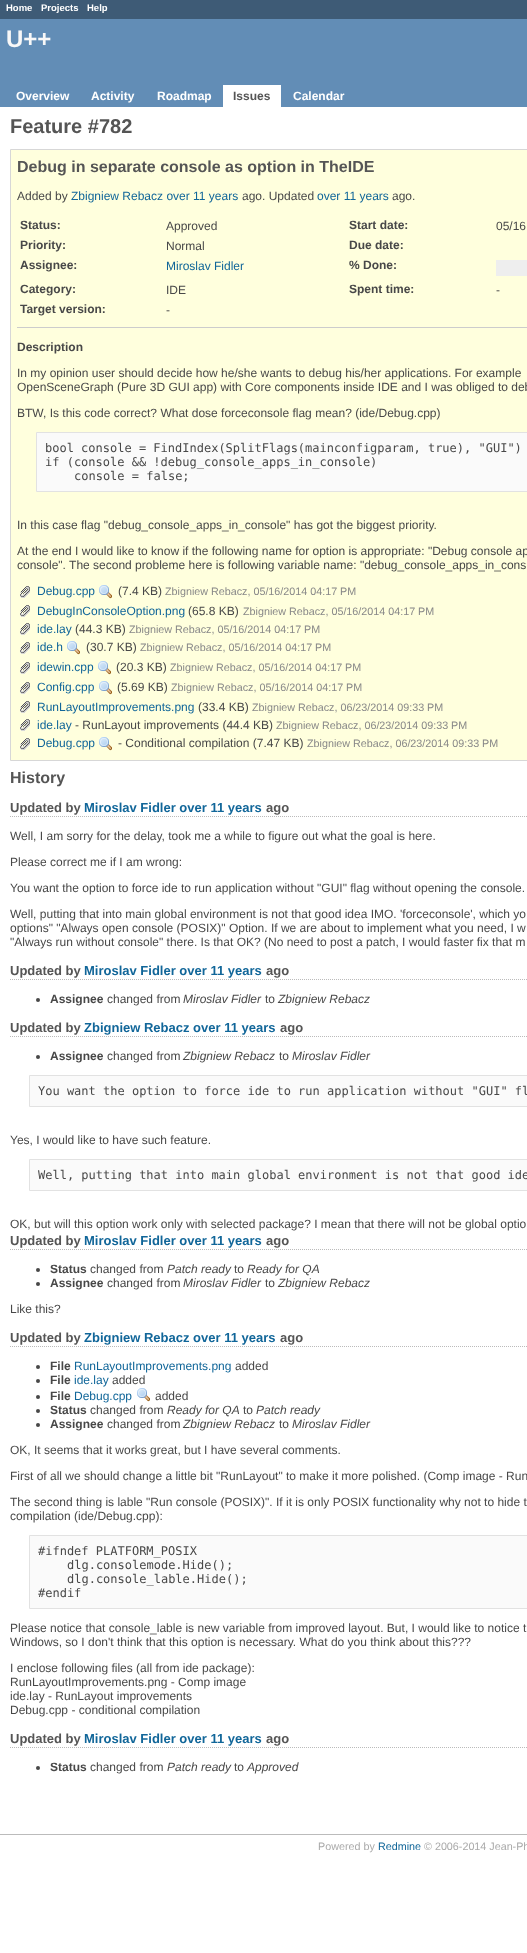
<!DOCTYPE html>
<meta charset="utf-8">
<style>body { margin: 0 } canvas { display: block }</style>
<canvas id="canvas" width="527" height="1953"></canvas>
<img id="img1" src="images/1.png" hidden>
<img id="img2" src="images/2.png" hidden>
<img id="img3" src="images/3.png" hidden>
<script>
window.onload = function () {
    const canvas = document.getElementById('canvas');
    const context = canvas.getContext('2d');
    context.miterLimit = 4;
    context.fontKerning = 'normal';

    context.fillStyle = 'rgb(255, 255, 255)';
    context.fillRect(0, 0, 527, 1953);
    context.fillStyle = 'rgb(62, 91, 118)';
    context.fillRect(0, 0, 527, 19);
    context.fillStyle = 'rgb(98, 141, 182)';
    context.fillRect(0, 19, 527, 88);
    context.fillStyle = 'rgb(255, 255, 255)';
    context.fillRect(223, 85, 58, 22);
    context.fillStyle = 'rgb(255, 255, 221)';
    context.beginPath();
    context.rect(10.5, 149.5, 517, 611);
    context.fill();
    context.strokeStyle = 'rgb(215, 215, 215)';
    context.stroke();
    context.fillStyle = 'rgb(238, 238, 238)';
    context.fillRect(496, 260, 31, 16);
    context.fillStyle = 'rgb(204, 204, 204)';
    context.fillRect(17, 327, 510, 1);
    context.fillStyle = 'rgb(250, 250, 250)';
    context.beginPath();
    context.rect(36.5, 432.5, 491, 59);
    context.fill();
    context.strokeStyle = 'rgb(226, 226, 226)';
    context.stroke();
    context.drawImage(document.getElementById('img1'), 20, 586, 10, 12);
    context.drawImage(document.getElementById('img2'), 99, 585, 13, 14);
    context.drawImage(document.getElementById('img1'), 20, 605, 10, 12);
    context.drawImage(document.getElementById('img1'), 20, 623, 10, 12);
    context.drawImage(document.getElementById('img1'), 20, 642, 10, 12);
    context.drawImage(document.getElementById('img2'), 67, 641, 13, 14);
    context.drawImage(document.getElementById('img1'), 20, 662, 10, 12);
    context.drawImage(document.getElementById('img2'), 98, 661, 13, 14);
    context.drawImage(document.getElementById('img1'), 20, 682, 10, 12);
    context.drawImage(document.getElementById('img2'), 99, 681, 13, 14);
    context.drawImage(document.getElementById('img1'), 20, 701, 10, 12);
    context.drawImage(document.getElementById('img1'), 20, 719, 10, 12);
    context.drawImage(document.getElementById('img1'), 20, 738, 10, 12);
    context.drawImage(document.getElementById('img2'), 99, 737, 13, 14);
    context.beginPath();
    context.moveTo(10, 816.5);
    context.lineTo(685, 816.5);
    context.strokeStyle = 'rgb(187, 187, 187)';
    context.setLineDash([1, 1]);
    context.stroke();
    context.beginPath();
    context.moveTo(10, 979.5);
    context.lineTo(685, 979.5);
    context.stroke();
    context.fillStyle = 'rgb(72, 72, 72)';
    context.beginPath();
    context.arc(38, 1000, 2, 0, 2 * Math.PI);
    context.fill();
    context.beginPath();
    context.moveTo(10, 1036.5);
    context.lineTo(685, 1036.5);
    context.stroke();
    context.beginPath();
    context.arc(38, 1057, 2, 0, 2 * Math.PI);
    context.fill();
    context.fillStyle = 'rgb(250, 250, 250)';
    context.beginPath();
    context.rect(29.5, 1075.5, 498, 31);
    context.fill();
    context.strokeStyle = 'rgb(226, 226, 226)';
    context.setLineDash([]);
    context.stroke();
    context.beginPath();
    context.rect(29.5, 1159.5, 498, 31);
    context.fill();
    context.stroke();
    context.beginPath();
    context.moveTo(10, 1249.5);
    context.lineTo(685, 1249.5);
    context.strokeStyle = 'rgb(187, 187, 187)';
    context.setLineDash([1, 1]);
    context.stroke();
    context.fillStyle = 'rgb(72, 72, 72)';
    context.beginPath();
    context.arc(38, 1270, 2, 0, 2 * Math.PI);
    context.fill();
    context.beginPath();
    context.arc(38, 1284, 2, 0, 2 * Math.PI);
    context.fill();
    context.beginPath();
    context.moveTo(10, 1346.5);
    context.lineTo(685, 1346.5);
    context.stroke();
    context.beginPath();
    context.arc(38, 1367, 2, 0, 2 * Math.PI);
    context.fill();
    context.beginPath();
    context.arc(38, 1381, 2, 0, 2 * Math.PI);
    context.fill();
    context.beginPath();
    context.arc(38, 1397, 2, 0, 2 * Math.PI);
    context.fill();
    context.drawImage(document.getElementById('img3'), 137, 1388, 13, 14);
    context.beginPath();
    context.arc(38, 1411, 2, 0, 2 * Math.PI);
    context.fill();
    context.beginPath();
    context.arc(38, 1425, 2, 0, 2 * Math.PI);
    context.fill();
    context.fillStyle = 'rgb(250, 250, 250)';
    context.beginPath();
    context.rect(29.5, 1535.5, 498, 73);
    context.fill();
    context.strokeStyle = 'rgb(226, 226, 226)';
    context.setLineDash([]);
    context.stroke();
    context.beginPath();
    context.moveTo(10, 1747.5);
    context.lineTo(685, 1747.5);
    context.strokeStyle = 'rgb(187, 187, 187)';
    context.setLineDash([1, 1]);
    context.stroke();
    context.fillStyle = 'rgb(72, 72, 72)';
    context.beginPath();
    context.arc(38, 1768, 2, 0, 2 * Math.PI);
    context.fill();
    context.fillStyle = 'rgb(187, 187, 187)';
    context.fillRect(0, 1834, 527, 1);
    context.font = 'bold 9.5px Liberation Sans';
    context.fillStyle = 'rgb(255, 255, 255)';
    context.fillText('Home', 6, 11);
    context.fillText('Projects', 41, 11);
    context.fillText('Help', 87, 11);
    context.font = 'bold 24px Liberation Sans';
    context.fillStyle = 'rgb(248, 248, 248)';
    context.fillText('U++', 6, 47);
    context.font = 'bold 12px Liberation Sans';
    context.fillStyle = 'rgb(255, 255, 255)';
    context.fillText('Overview', 16, 100);
    context.fillText('Activity', 91, 100);
    context.fillText('Roadmap', 157, 100);
    context.fillStyle = 'rgb(85, 85, 85)';
    context.fillText('Issues', 233, 100);
    context.fillStyle = 'rgb(255, 255, 255)';
    context.fillText('Calendar', 293, 100);
    context.font = 'bold 20px Liberation Sans';
    context.fillStyle = 'rgb(85, 85, 85)';
    context.fillText('Feature #782', 10, 133);
    context.font = 'bold 16px Liberation Sans';
    context.fillText('Debug in separate console as option in TheIDE', 17, 172);
    context.font = '12px Liberation Sans';
    context.fillStyle = 'rgb(72, 72, 72)';
    context.fillText('Added by', 17, 200);
    context.fillStyle = 'rgb(17, 102, 153)';
    context.fillText('Zbigniew Rebacz over 11 years', 71, 200);
    context.fillStyle = 'rgb(72, 72, 72)';
    context.fillText('ago. Updated', 242, 200);
    context.fillStyle = 'rgb(17, 102, 153)';
    context.fillText('over 11 years', 317, 200);
    context.fillStyle = 'rgb(72, 72, 72)';
    context.fillText('ago.', 392, 200);
    context.font = 'bold 12px Liberation Sans';
    context.fillText('Status:', 20, 229);
    context.font = '12px Liberation Sans';
    context.fillText('Approved', 166, 230);
    context.font = 'bold 12px Liberation Sans';
    context.fillText('Start date:', 349, 229);
    context.font = '12px Liberation Sans';
    context.fillText('05/16', 496, 230);
    context.font = 'bold 12px Liberation Sans';
    context.fillText('Priority:', 20, 249);
    context.font = '12px Liberation Sans';
    context.fillText('Normal', 166, 250);
    context.font = 'bold 12px Liberation Sans';
    context.fillText('Due date:', 349, 249);
    context.fillText('Assignee:', 20, 269);
    context.font = '12px Liberation Sans';
    context.fillStyle = 'rgb(17, 102, 153)';
    context.fillText('Miroslav Fidler', 166, 270);
    context.font = 'bold 12px Liberation Sans';
    context.fillStyle = 'rgb(72, 72, 72)';
    context.fillText('% Done:', 349, 269);
    context.fillText('Category:', 20, 293);
    context.font = '12px Liberation Sans';
    context.fillText('IDE', 166, 294);
    context.font = 'bold 12px Liberation Sans';
    context.fillText('Spent time:', 349, 293);
    context.font = '12px Liberation Sans';
    context.fillText('-', 496, 294);
    context.font = 'bold 12px Liberation Sans';
    context.fillText('Target version:', 20, 313);
    context.font = '12px Liberation Sans';
    context.fillText('-', 166, 314);
    context.font = 'bold 12px Liberation Sans';
    context.fillText('Description', 17, 351);
    context.font = '12px Liberation Sans';
    context.fillText('In my opinion user should decide how he/she wants to debug his/her applications. For example', 17, 377);
    context.fillText('OpenSceneGraph (Pure 3D GUI app) with Core components inside IDE and I was obliged to deb', 17, 391);
    context.fillText('BTW, Is this code correct? What dose forceconsole flag mean? (ide/Debug.cpp)', 17, 417);
    context.font = '12px DejaVu Sans Mono';
    context.fillText('bool console = FindIndex(SplitFlags(mainconfigparam, true), "GUI")', 45, 452);
    context.fillText('if (console && !debug_console_apps_in_console)', 45, 466);
    context.fillText('console = false;', 74, 480);
    context.font = '12px Liberation Sans';
    context.fillText('In this case flag "debug_console_apps_in_console" has got the biggest priority.', 17, 529);
    context.fillText('At the end I would like to know if the following name for option is appropriate: "Debug console ap', 17, 555);
    context.fillText('console". The second probleme here is following variable name: "debug_console_apps_in_cons', 17, 569);
    context.fillStyle = 'rgb(17, 102, 153)';
    context.fillText('Debug.cpp', 37, 595);
    context.fillStyle = 'rgb(72, 72, 72)';
    context.fillText('(7.4 KB)', 118, 595);
    context.font = '10.75px Liberation Sans';
    context.fillStyle = 'rgb(136, 136, 136)';
    context.fillText('Zbigniew Rebacz, 05/16/2014 04:17 PM', 165, 595);
    context.font = '12px Liberation Sans';
    context.fillStyle = 'rgb(17, 102, 153)';
    context.fillText('DebugInConsoleOption.png', 37, 615);
    context.fillStyle = 'rgb(72, 72, 72)';
    context.fillText('(65.8 KB)', 188, 615);
    context.font = '10.75px Liberation Sans';
    context.fillStyle = 'rgb(136, 136, 136)';
    context.fillText('Zbigniew Rebacz, 05/16/2014 04:17 PM', 243, 615);
    context.font = '12px Liberation Sans';
    context.fillStyle = 'rgb(17, 102, 153)';
    context.fillText('ide.lay', 37, 633);
    context.fillStyle = 'rgb(72, 72, 72)';
    context.fillText('(44.3 KB)', 75, 633);
    context.font = '10.75px Liberation Sans';
    context.fillStyle = 'rgb(136, 136, 136)';
    context.fillText('Zbigniew Rebacz, 05/16/2014 04:17 PM', 129, 633);
    context.font = '12px Liberation Sans';
    context.fillStyle = 'rgb(17, 102, 153)';
    context.fillText('ide.h', 37, 651);
    context.fillStyle = 'rgb(72, 72, 72)';
    context.fillText('(30.7 KB)', 86, 651);
    context.font = '10.75px Liberation Sans';
    context.fillStyle = 'rgb(136, 136, 136)';
    context.fillText('Zbigniew Rebacz, 05/16/2014 04:17 PM', 140, 651);
    context.font = '12px Liberation Sans';
    context.fillStyle = 'rgb(17, 102, 153)';
    context.fillText('idewin.cpp', 37, 671);
    context.fillStyle = 'rgb(72, 72, 72)';
    context.fillText('(20.3 KB)', 116, 671);
    context.font = '10.75px Liberation Sans';
    context.fillStyle = 'rgb(136, 136, 136)';
    context.fillText('Zbigniew Rebacz, 05/16/2014 04:17 PM', 170, 671);
    context.font = '12px Liberation Sans';
    context.fillStyle = 'rgb(17, 102, 153)';
    context.fillText('Config.cpp', 37, 691);
    context.fillStyle = 'rgb(72, 72, 72)';
    context.fillText('(5.69 KB)', 117, 691);
    context.font = '10.75px Liberation Sans';
    context.fillStyle = 'rgb(136, 136, 136)';
    context.fillText('Zbigniew Rebacz, 05/16/2014 04:17 PM', 171, 691);
    context.font = '12px Liberation Sans';
    context.fillStyle = 'rgb(17, 102, 153)';
    context.fillText('RunLayoutImprovements.png', 37, 711);
    context.fillStyle = 'rgb(72, 72, 72)';
    context.fillText('(33.4 KB)', 198, 711);
    context.font = '10.75px Liberation Sans';
    context.fillStyle = 'rgb(136, 136, 136)';
    context.fillText('Zbigniew Rebacz, 06/23/2014 09:33 PM', 252, 711);
    context.font = '12px Liberation Sans';
    context.fillStyle = 'rgb(17, 102, 153)';
    context.fillText('ide.lay', 37, 729);
    context.fillStyle = 'rgb(72, 72, 72)';
    context.fillText('- RunLayout improvements (44.4 KB)', 75, 729);
    context.font = '10.75px Liberation Sans';
    context.fillStyle = 'rgb(136, 136, 136)';
    context.fillText('Zbigniew Rebacz, 06/23/2014 09:33 PM', 276, 729);
    context.font = '12px Liberation Sans';
    context.fillStyle = 'rgb(17, 102, 153)';
    context.fillText('Debug.cpp', 37, 747);
    context.fillStyle = 'rgb(72, 72, 72)';
    context.fillText('- Conditional compilation (7.47 KB)', 118, 747);
    context.font = '10.75px Liberation Sans';
    context.fillStyle = 'rgb(136, 136, 136)';
    context.fillText('Zbigniew Rebacz, 06/23/2014 09:33 PM', 307, 747);
    context.font = 'bold 16px Liberation Sans';
    context.fillStyle = 'rgb(85, 85, 85)';
    context.fillText('History', 10, 783);
    context.font = 'bold 13px Liberation Sans';
    context.fillText('Updated by', 10, 812);
    context.fillStyle = 'rgb(17, 102, 153)';
    context.fillText('Miroslav Fidler over 11 years', 84, 812);
    context.fillStyle = 'rgb(85, 85, 85)';
    context.fillText('ago', 266, 812);
    context.font = '12px Liberation Sans';
    context.fillStyle = 'rgb(72, 72, 72)';
    context.fillText('Well, I am sorry for the delay, took me a while to figure out what the goal is here.', 10, 840);
    context.fillText('Please correct me if I am wrong:', 10, 866);
    context.fillText('You want the option to force ide to run application without "GUI" flag without opening the console.', 10, 892);
    context.fillText('Well, putting that into main global environment is not that good idea IMO. \'forceconsole\', which yo', 10, 918);
    context.fillText('options" "Always open console (POSIX)" Option. If we are about to implement what you need, I w', 10, 932);
    context.fillText('"Always run without console" there. Is that OK? (No need to post a patch, I would faster fix that m', 10, 946);
    context.font = 'bold 13px Liberation Sans';
    context.fillStyle = 'rgb(85, 85, 85)';
    context.fillText('Updated by', 10, 975);
    context.fillStyle = 'rgb(17, 102, 153)';
    context.fillText('Miroslav Fidler over 11 years', 84, 975);
    context.fillStyle = 'rgb(85, 85, 85)';
    context.fillText('ago', 266, 975);
    context.font = 'bold 12px Liberation Sans';
    context.fillStyle = 'rgb(72, 72, 72)';
    context.fillText('Assignee', 50, 1003);
    context.font = '12px Liberation Sans';
    context.fillText('changed from', 107, 1003);
    context.font = 'italic 12px Liberation Sans';
    context.fillText('Miroslav Fidler', 183, 1003);
    context.font = '12px Liberation Sans';
    context.fillText('to', 265, 1003);
    context.font = 'italic 12px Liberation Sans';
    context.fillText('Zbigniew Rebacz', 278, 1003);
    context.font = 'bold 13px Liberation Sans';
    context.fillStyle = 'rgb(85, 85, 85)';
    context.fillText('Updated by', 10, 1032);
    context.fillStyle = 'rgb(17, 102, 153)';
    context.fillText('Zbigniew Rebacz over 11 years', 84, 1032);
    context.fillStyle = 'rgb(85, 85, 85)';
    context.fillText('ago', 280, 1032);
    context.font = 'bold 12px Liberation Sans';
    context.fillStyle = 'rgb(72, 72, 72)';
    context.fillText('Assignee', 50, 1060);
    context.font = '12px Liberation Sans';
    context.fillText('changed from', 107, 1060);
    context.font = 'italic 12px Liberation Sans';
    context.fillText('Zbigniew Rebacz', 183, 1060);
    context.font = '12px Liberation Sans';
    context.fillText('to', 279, 1060);
    context.font = 'italic 12px Liberation Sans';
    context.fillText('Miroslav Fidler', 292, 1060);
    context.font = '12px DejaVu Sans Mono';
    context.fillText('You want the option to force ide to run application without "GUI" fl', 38, 1095);
    context.font = '12px Liberation Sans';
    context.fillText('Yes, I would like to have such feature.', 10, 1144);
    context.font = '12px DejaVu Sans Mono';
    context.fillText('Well, putting that into main global environment is not that good ide', 38, 1179);
    context.font = '12px Liberation Sans';
    context.fillText('OK, but will this option work only with selected package? I mean that there will not be global optio', 10, 1228);
    context.font = 'bold 13px Liberation Sans';
    context.fillStyle = 'rgb(85, 85, 85)';
    context.fillText('Updated by', 10, 1245);
    context.fillStyle = 'rgb(17, 102, 153)';
    context.fillText('Miroslav Fidler over 11 years', 84, 1245);
    context.fillStyle = 'rgb(85, 85, 85)';
    context.fillText('ago', 266, 1245);
    context.font = 'bold 12px Liberation Sans';
    context.fillStyle = 'rgb(72, 72, 72)';
    context.fillText('Status', 50, 1273);
    context.font = '12px Liberation Sans';
    context.fillText('changed from', 90, 1273);
    context.font = 'italic 12px Liberation Sans';
    context.fillText('Patch ready', 167, 1273);
    context.font = '12px Liberation Sans';
    context.fillText('to', 234, 1273);
    context.font = 'italic 12px Liberation Sans';
    context.fillText('Ready for QA', 247, 1273);
    context.font = 'bold 12px Liberation Sans';
    context.fillText('Assignee', 50, 1287);
    context.font = '12px Liberation Sans';
    context.fillText('changed from', 107, 1287);
    context.font = 'italic 12px Liberation Sans';
    context.fillText('Miroslav Fidler', 183, 1287);
    context.font = '12px Liberation Sans';
    context.fillText('to', 265, 1287);
    context.font = 'italic 12px Liberation Sans';
    context.fillText('Zbigniew Rebacz', 278, 1287);
    context.font = '12px Liberation Sans';
    context.fillText('Like this?', 10, 1313);
    context.font = 'bold 13px Liberation Sans';
    context.fillStyle = 'rgb(85, 85, 85)';
    context.fillText('Updated by', 10, 1342);
    context.fillStyle = 'rgb(17, 102, 153)';
    context.fillText('Zbigniew Rebacz over 11 years', 84, 1342);
    context.fillStyle = 'rgb(85, 85, 85)';
    context.fillText('ago', 280, 1342);
    context.font = 'bold 12px Liberation Sans';
    context.fillStyle = 'rgb(72, 72, 72)';
    context.fillText('File', 50, 1370);
    context.font = '12px Liberation Sans';
    context.fillStyle = 'rgb(17, 102, 153)';
    context.fillText('RunLayoutImprovements.png', 74, 1370);
    context.fillStyle = 'rgb(72, 72, 72)';
    context.fillText('added', 235, 1370);
    context.font = 'bold 12px Liberation Sans';
    context.fillText('File', 50, 1384);
    context.font = '12px Liberation Sans';
    context.fillStyle = 'rgb(17, 102, 153)';
    context.fillText('ide.lay', 74, 1384);
    context.fillStyle = 'rgb(72, 72, 72)';
    context.fillText('added', 112, 1384);
    context.font = 'bold 12px Liberation Sans';
    context.fillText('File', 50, 1400);
    context.font = '12px Liberation Sans';
    context.fillStyle = 'rgb(17, 102, 153)';
    context.fillText('Debug.cpp', 74, 1400);
    context.fillStyle = 'rgb(72, 72, 72)';
    context.fillText('added', 155, 1400);
    context.font = 'bold 12px Liberation Sans';
    context.fillText('Status', 50, 1414);
    context.font = '12px Liberation Sans';
    context.fillText('changed from', 90, 1414);
    context.font = 'italic 12px Liberation Sans';
    context.fillText('Ready for QA', 167, 1414);
    context.font = '12px Liberation Sans';
    context.fillText('to', 243, 1414);
    context.font = 'italic 12px Liberation Sans';
    context.fillText('Patch ready', 256, 1414);
    context.font = 'bold 12px Liberation Sans';
    context.fillText('Assignee', 50, 1428);
    context.font = '12px Liberation Sans';
    context.fillText('changed from', 107, 1428);
    context.font = 'italic 12px Liberation Sans';
    context.fillText('Zbigniew Rebacz', 183, 1428);
    context.font = '12px Liberation Sans';
    context.fillText('to', 279, 1428);
    context.font = 'italic 12px Liberation Sans';
    context.fillText('Miroslav Fidler', 292, 1428);
    context.font = '12px Liberation Sans';
    context.fillText('OK, It seems that it works great, but I have several comments.', 10, 1454);
    context.fillText('First of all we should change a little bit "RunLayout" to make it more polished. (Comp image - Run', 10, 1480);
    context.fillText('The second thing is lable "Run console (POSIX)". If it is only POSIX functionality why not to hide t', 10, 1506);
    context.fillText('compilation (ide/Debug.cpp):', 10, 1520);
    context.font = '12px DejaVu Sans Mono';
    context.fillText('#ifndef PLATFORM_POSIX', 38, 1555);
    context.fillText('dlg.consolemode.Hide();', 67, 1569);
    context.fillText('dlg.console_lable.Hide();', 67, 1583);
    context.fillText('#endif', 38, 1597);
    context.font = '12px Liberation Sans';
    context.fillText('Please notice that console_lable is new variable from improved layout. But, I would like to notice t', 10, 1632);
    context.fillText('Windows, so I don\'t think that this option is necessary. What do you think about this???', 10, 1646);
    context.fillText('I enclose following files (all from ide package):', 10, 1672);
    context.fillText('RunLayoutImprovements.png - Comp image', 10, 1686);
    context.fillText('ide.lay - RunLayout improvements', 10, 1700);
    context.fillText('Debug.cpp - conditional compilation', 10, 1714);
    context.font = 'bold 13px Liberation Sans';
    context.fillStyle = 'rgb(85, 85, 85)';
    context.fillText('Updated by', 10, 1743);
    context.fillStyle = 'rgb(17, 102, 153)';
    context.fillText('Miroslav Fidler over 11 years', 84, 1743);
    context.fillStyle = 'rgb(85, 85, 85)';
    context.fillText('ago', 266, 1743);
    context.font = 'bold 12px Liberation Sans';
    context.fillStyle = 'rgb(72, 72, 72)';
    context.fillText('Status', 50, 1771);
    context.font = '12px Liberation Sans';
    context.fillText('changed from', 90, 1771);
    context.font = 'italic 12px Liberation Sans';
    context.fillText('Patch ready', 167, 1771);
    context.font = '12px Liberation Sans';
    context.fillText('to', 234, 1771);
    context.font = 'italic 12px Liberation Sans';
    context.fillText('Approved', 247, 1771);
    context.font = '10.75px Liberation Sans';
    context.fillStyle = 'rgb(170, 170, 170)';
    context.fillText('Powered by', 318, 1850);
    context.fillStyle = 'rgb(17, 102, 153)';
    context.fillText('Redmine', 378, 1850);
    context.fillStyle = 'rgb(170, 170, 170)';
    context.fillText('© 2006-2014 Jean-Ph', 424, 1850);
};
</script>
